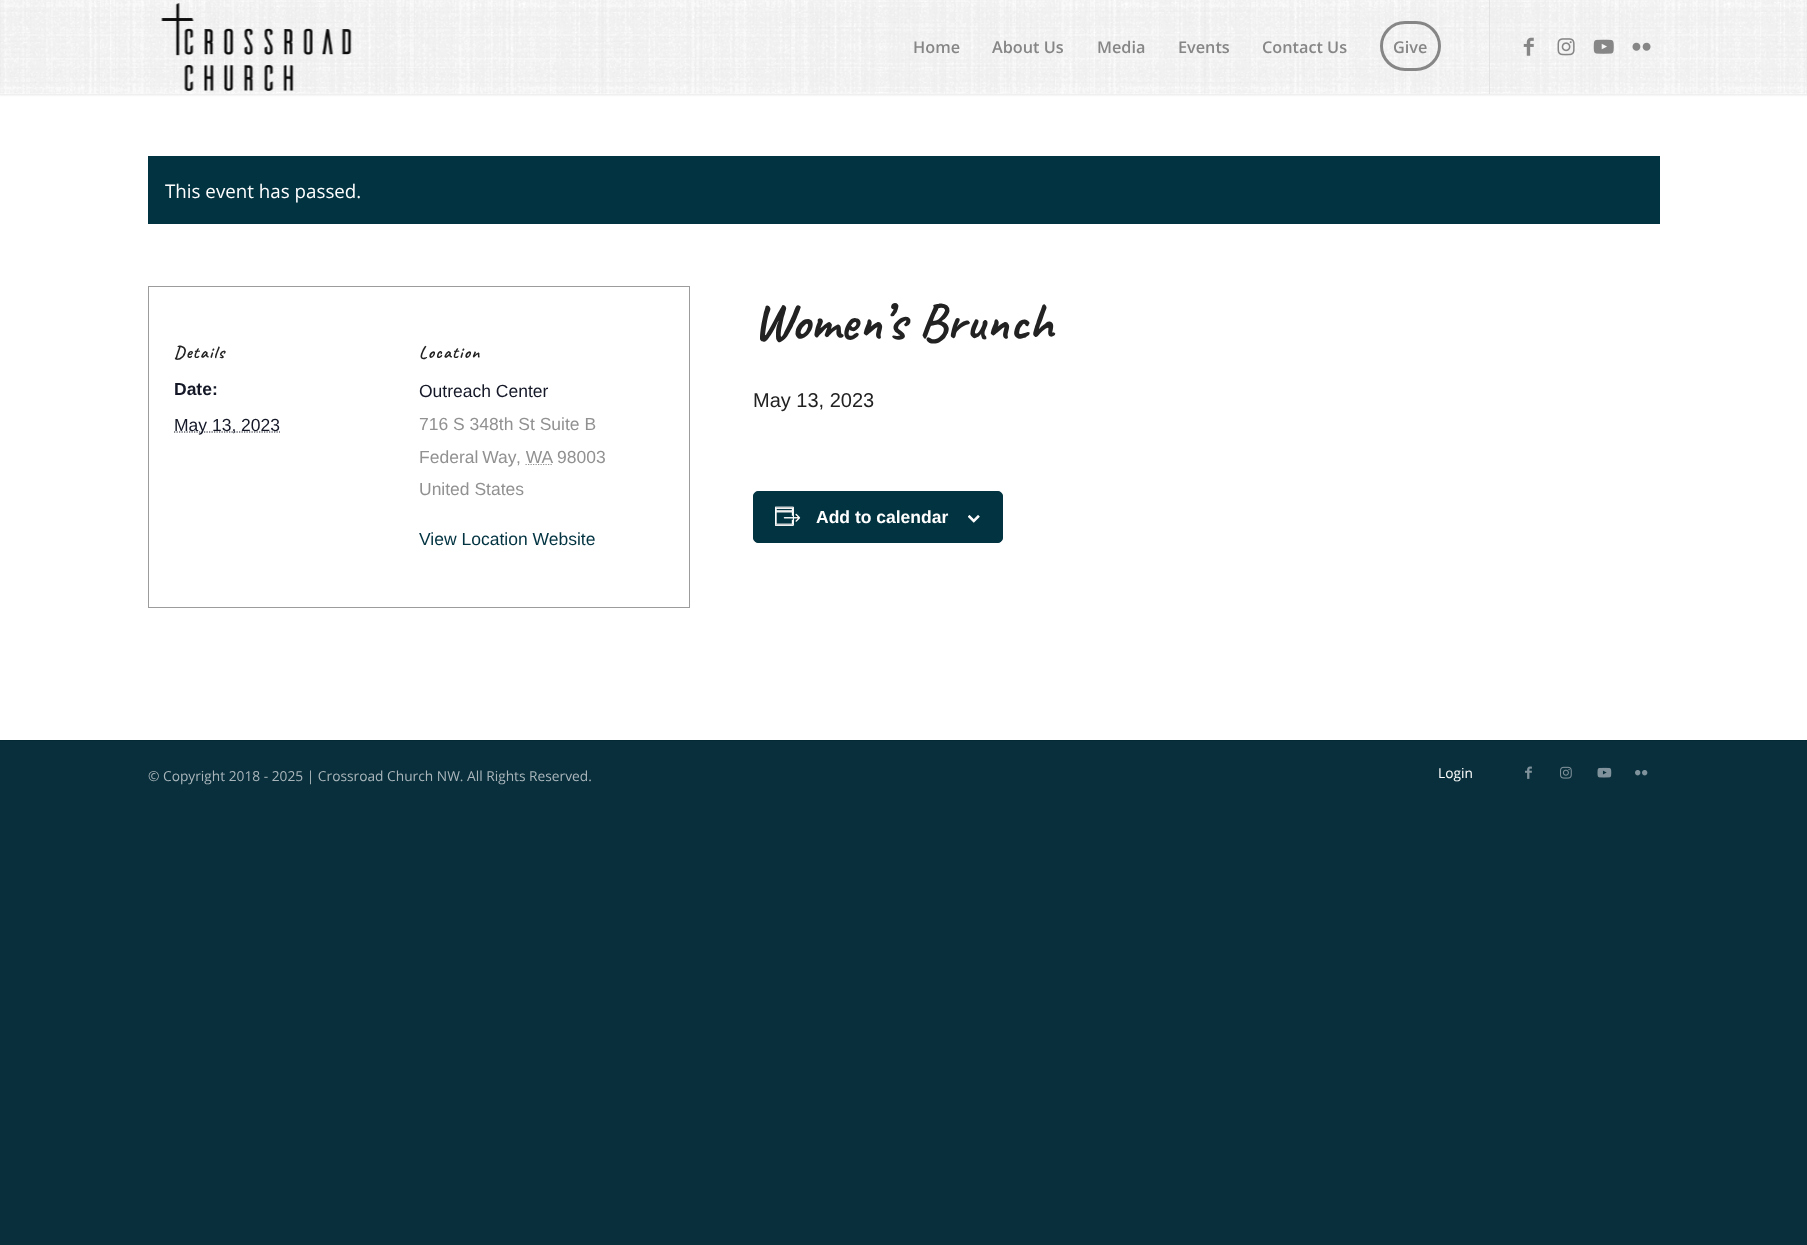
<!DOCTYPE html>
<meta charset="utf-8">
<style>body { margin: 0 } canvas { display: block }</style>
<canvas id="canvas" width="1807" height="1245"></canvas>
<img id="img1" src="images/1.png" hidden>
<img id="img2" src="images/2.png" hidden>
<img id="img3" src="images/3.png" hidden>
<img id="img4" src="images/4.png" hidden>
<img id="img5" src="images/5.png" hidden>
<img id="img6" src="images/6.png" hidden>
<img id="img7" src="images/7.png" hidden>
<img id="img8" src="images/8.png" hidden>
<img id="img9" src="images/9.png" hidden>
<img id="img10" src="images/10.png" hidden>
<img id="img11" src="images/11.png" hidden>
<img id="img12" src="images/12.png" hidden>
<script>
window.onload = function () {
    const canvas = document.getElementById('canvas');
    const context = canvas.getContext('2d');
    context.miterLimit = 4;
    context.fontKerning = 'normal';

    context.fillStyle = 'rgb(8, 47, 59)';
    context.fillRect(0, 0, 1807, 1245);
    context.fillStyle = 'rgb(255, 255, 255)';
    context.fillRect(0, 94, 1807, 646);
    context.fillStyle = 'rgba(13, 13, 13, 0.1)';
    context.filter = 'blur(1px)';
    context.beginPath();
    context.rect(-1, -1, 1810, 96);
    context.fill();
    context.filter = 'none';
    context.fillStyle = 'rgb(255, 255, 255)';
    context.fillRect(0, 0, 1807, 94);
    context.drawImage(document.getElementById('img1'), 0, 0, 1807, 94);
    context.drawImage(document.getElementById('img2'), 161, 3, 191, 88);
    context.fillStyle = 'rgb(227, 227, 227)';
    context.fillRect(1489, 0, 1, 94);
    context.beginPath();
    context.roundRect(1381.5, 22.5, 58, 47, 23.5);
    context.strokeStyle = 'rgb(134, 134, 134)';
    context.lineWidth = 3;
    context.stroke();
    context.drawImage(document.getElementById('img3'), 1523, 37, 11, 19);
    context.drawImage(document.getElementById('img4'), 1557, 38, 18, 18);
    context.drawImage(document.getElementById('img5'), 1593, 39, 21, 15);
    context.drawImage(document.getElementById('img6'), 1632, 42, 19, 9);
    context.fillStyle = 'rgb(2, 51, 65)';
    context.fillRect(148, 156, 1512, 68);
    context.strokeStyle = 'rgb(156, 156, 156)';
    context.lineWidth = 1;
    context.strokeRect(148.5, 286.5, 541, 321);
    context.beginPath();
    context.moveTo(174, 432);
    context.lineTo(280, 432);
    context.strokeStyle = 'rgb(20, 24, 39)';
    context.lineWidth = 1.2;
    context.setLineDash([1.25, 1.25]);
    context.stroke();
    context.beginPath();
    context.moveTo(525.5, 464.5);
    context.lineTo(552.5, 464.5);
    context.strokeStyle = 'rgb(145, 145, 145)';
    context.stroke();
    context.beginPath();
    context.roundRect(753.5, 491.5, 249, 51, 4.5);
    context.fill();
    context.strokeStyle = 'rgb(2, 51, 65)';
    context.lineWidth = 1;
    context.setLineDash([]);
    context.stroke();
    context.drawImage(document.getElementById('img7'), 775, 506, 26, 20);
    context.drawImage(document.getElementById('img8'), 968, 515, 12, 8);
    context.fillStyle = 'rgb(2, 41, 52)';
    context.fillRect(0, 740, 1807, 1);
    context.drawImage(document.getElementById('img9'), 1525, 766, 7, 13);
    context.drawImage(document.getElementById('img10'), 1560, 766, 12, 13);
    context.drawImage(document.getElementById('img11'), 1597, 767, 15, 11);
    context.drawImage(document.getElementById('img12'), 1635, 770, 13, 6);
    context.font = '600 16.25px Open Sans';
    context.fillStyle = 'rgb(134, 134, 134)';
    context.fillText('Home', 913, 53);
    context.fillText('About Us', 992, 53);
    context.fillText('Media', 1097, 53);
    context.fillText('Events', 1178, 53);
    context.fillText('Contact Us', 1262, 53);
    context.fillText('Give', 1393, 53);
    context.font = '18.75px Open Sans';
    context.fillStyle = 'rgb(255, 255, 255)';
    context.fillText('This event has passed.', 165, 198);
    context.letterSpacing = '1.25px';
    context.font = 'bold 17.5px Caveat';
    context.fillStyle = 'rgb(34, 34, 34)';
    context.fillText('Details', 174, 358);
    context.letterSpacing = '0px';
    context.font = 'bold 17.5px Liberation Sans';
    context.fillStyle = 'rgb(20, 24, 39)';
    context.fillText('Date:', 174, 395);
    context.font = '17.5px Liberation Sans';
    context.fillText('May 13, 2023', 174, 431);
    context.letterSpacing = '1.25px';
    context.font = 'bold 17.5px Caveat';
    context.fillStyle = 'rgb(34, 34, 34)';
    context.fillText('Location', 419, 358);
    context.letterSpacing = '0px';
    context.font = '17.5px Liberation Sans';
    context.fillStyle = 'rgb(20, 24, 39)';
    context.fillText('Outreach Center', 419, 397);
    context.fillStyle = 'rgb(145, 145, 145)';
    context.fillText('716 S 348th St Suite B', 419, 430);
    context.wordSpacing = '-1px';
    context.fillText('Federal Way', 419, 463);
    context.wordSpacing = '0px';
    context.fillText(', WA', 516, 463);
    context.fillText('98003', 557, 463);
    context.fillText('United States', 419, 495);
    context.fillStyle = 'rgb(2, 51, 65)';
    context.fillText('View Location Website', 419, 545);
    context.font = 'bold 52.5px Caveat';
    context.fillStyle = 'rgb(34, 34, 34)';
    context.fillText('Women’s Brunch', 753, 339);
    context.font = '20px Liberation Sans';
    context.fillText('May 13, 2023', 753, 407);
    context.font = 'bold 17.5px Liberation Sans';
    context.fillStyle = 'rgb(255, 255, 255)';
    context.fillText('Add to calendar', 816, 523);
    context.font = '13.75px Open Sans';
    context.fillStyle = 'rgb(169, 181, 187)';
    context.fillText('© Copyright 2018 - 2025 | Crossroad Church NW. All Rights Reserved.', 148, 781);
    context.fillStyle = 'rgb(255, 255, 255)';
    context.fillText('Login', 1438, 778);
};
</script>
